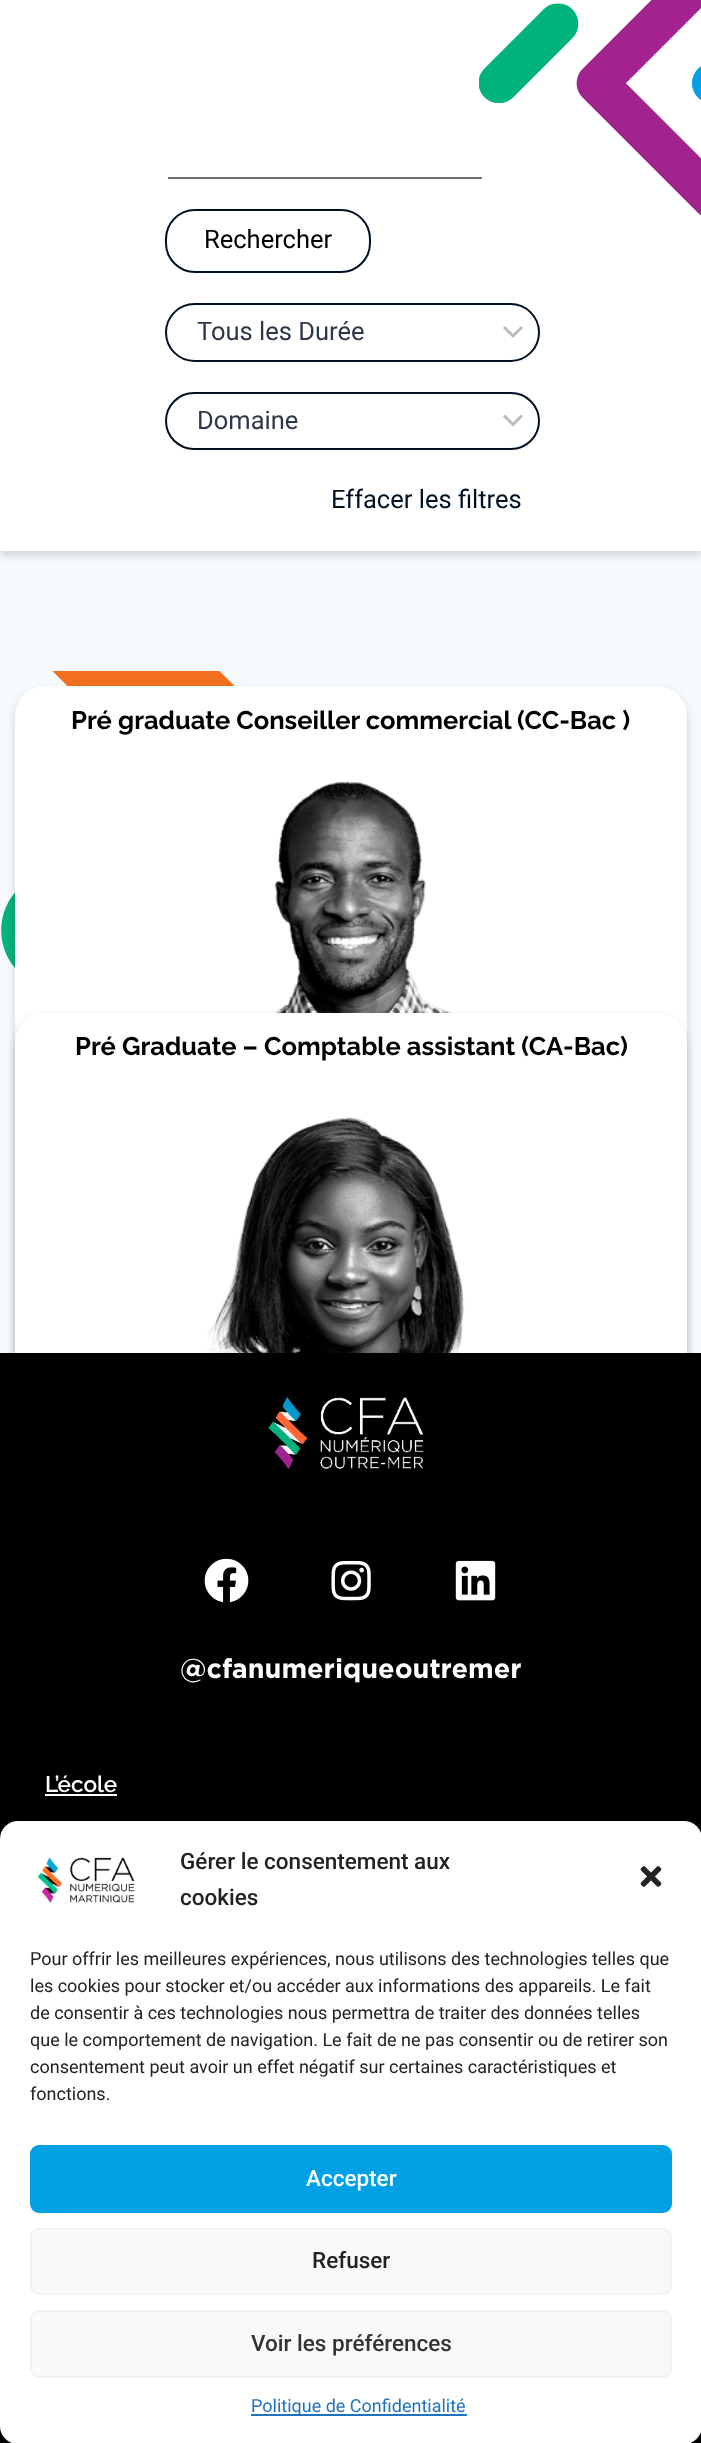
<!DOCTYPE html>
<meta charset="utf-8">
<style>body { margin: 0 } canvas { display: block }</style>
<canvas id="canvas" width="701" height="2443"></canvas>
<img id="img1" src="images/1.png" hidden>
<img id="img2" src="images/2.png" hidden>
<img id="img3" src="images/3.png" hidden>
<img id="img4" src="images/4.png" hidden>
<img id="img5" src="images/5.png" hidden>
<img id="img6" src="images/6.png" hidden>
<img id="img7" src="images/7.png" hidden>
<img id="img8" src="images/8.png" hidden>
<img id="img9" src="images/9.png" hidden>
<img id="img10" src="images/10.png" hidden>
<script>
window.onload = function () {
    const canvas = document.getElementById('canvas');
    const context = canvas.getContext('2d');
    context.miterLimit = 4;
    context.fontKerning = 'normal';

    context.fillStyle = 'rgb(247, 250, 252)';
    context.fillRect(0, 0, 701, 2443);
    context.fillStyle = 'rgba(0, 0, 0, 0.16)';
    context.filter = 'blur(4.5px)';
    context.beginPath();
    context.rect(0, -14, 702, 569);
    context.fill();
    context.filter = 'none';
    context.fillStyle = 'rgb(255, 255, 255)';
    context.fillRect(0, 0, 701, 551);
    context.drawImage(document.getElementById('img1'), 479, 0, 222, 216);
    context.fillStyle = 'rgb(112, 112, 112)';
    context.fillRect(168, 177, 314, 2);
    context.beginPath();
    context.roundRect(166, 210, 204, 62, 29);
    context.strokeStyle = 'rgb(0, 17, 36)';
    context.lineWidth = 2;
    context.stroke();
    context.beginPath();
    context.moveTo(504, 327);
    context.lineTo(513, 336);
    context.lineTo(522, 327);
    context.strokeStyle = 'rgb(187, 187, 187)';
    context.lineWidth = 3;
    context.stroke();
    context.beginPath();
    context.roundRect(166, 304, 373, 57, 28.5);
    context.strokeStyle = 'rgb(0, 17, 36)';
    context.lineWidth = 2;
    context.stroke();
    context.beginPath();
    context.moveTo(504, 415.5);
    context.lineTo(513, 424.5);
    context.lineTo(522, 415.5);
    context.strokeStyle = 'rgb(187, 187, 187)';
    context.lineWidth = 3;
    context.stroke();
    context.beginPath();
    context.roundRect(166, 393, 373, 56, 28);
    context.strokeStyle = 'rgb(0, 17, 36)';
    context.lineWidth = 2;
    context.stroke();
    context.drawImage(document.getElementById('img2'), 1, 671, 234, 297);
    context.fillStyle = 'rgba(0, 0, 0, 0.16)';
    context.filter = 'blur(4.5px)';
    context.beginPath();
    context.roundRect(15, 690, 672, 750, 30);
    context.fill();
    context.filter = 'none';
    context.fillStyle = 'rgb(255, 255, 255)';
    context.beginPath();
    context.roundRect(15, 686, 672, 750, [30, 30, 0, 0]);
    context.fill();
    context.drawImage(document.getElementById('img3'), 274, 781, 179, 232);
    context.fillStyle = 'rgba(0, 0, 0, 0.16)';
    context.filter = 'blur(4.5px)';
    context.beginPath();
    context.roundRect(15, 1017, 672, 749, 30);
    context.fill();
    context.filter = 'none';
    context.fillStyle = 'rgb(255, 255, 255)';
    context.beginPath();
    context.roundRect(15, 1013, 672, 748, [30, 30, 0, 0]);
    context.fill();
    context.drawImage(document.getElementById('img4'), 206, 1117, 259, 236);
    context.fillStyle = 'rgb(0, 0, 0)';
    context.fillRect(0, 1353, 701, 1090);
    context.drawImage(document.getElementById('img5'), 268, 1397, 156, 72);
    context.drawImage(document.getElementById('img6'), 204, 1558, 45, 45);
    context.drawImage(document.getElementById('img7'), 331, 1560, 40, 41);
    context.drawImage(document.getElementById('img8'), 455, 1560, 41, 41);
    context.fillStyle = 'rgb(255, 255, 255)';
    context.fillRect(45, 1794, 72, 2);
    context.beginPath();
    context.roundRect(0, 1821, 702, 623, 18);
    context.fill();
    context.drawImage(document.getElementById('img9'), 37, 1857, 98, 46);
    context.drawImage(document.getElementById('img10'), 640, 1866, 22, 21);
    context.fillStyle = 'rgb(0, 161, 228)';
    context.beginPath();
    context.roundRect(31, 2146, 640, 66, 8);
    context.fill();
    context.strokeStyle = 'rgb(0, 161, 228)';
    context.stroke();
    context.fillStyle = 'rgb(249, 249, 249)';
    context.beginPath();
    context.roundRect(31, 2229, 640, 65, 8);
    context.fill();
    context.strokeStyle = 'rgb(242, 242, 242)';
    context.stroke();
    context.beginPath();
    context.roundRect(31, 2311, 640, 66, 8);
    context.fill();
    context.stroke();
    context.fillStyle = 'rgb(30, 115, 190)';
    context.fillRect(251, 2414, 216, 2);
    context.font = '25.5px Roboto';
    context.fillStyle = 'rgb(0, 0, 0)';
    context.fillText('Rechercher', 204, 248);
    context.fillStyle = 'rgb(45, 55, 72)';
    context.fillText('Tous les Durée', 197, 340);
    context.fillText('Domaine', 197, 429);
    context.fillStyle = 'rgb(0, 17, 36)';
    context.fillText('Effacer les filtres', 331, 508);
    context.font = 'bold 25.5px Raleway';
    context.fillStyle = 'rgb(0, 0, 0)';
    context.fillText('Pré graduate Conseiller commercial (CC-Bac )', 71, 729);
    context.fillText('Pré Graduate – Comptable assistant (CA-Bac)', 75, 1055);
    context.font = 'bold 27px Gotham';
    context.fillStyle = 'rgb(255, 255, 255)';
    context.fillText('@cfanumeriqueoutremer', 180, 1678);
    context.font = '600 22.5px Raleway';
    context.fillText('L’école', 45, 1792);
    context.font = '500 22.5px Roboto';
    context.fillStyle = 'rgb(34, 34, 34)';
    context.fillText('Gérer le consentement aux', 180, 1869);
    context.fillText('cookies', 180, 1905);
    context.font = '18px Roboto';
    context.fillText('Pour offrir les meilleures expériences, nous utilisons des technologies telles que', 30, 1965);
    context.fillText('les cookies pour stocker et/ou accéder aux informations des appareils. Le fait', 30, 1992);
    context.fillText('de consentir à ces technologies nous permettra de traiter des données telles', 30, 2019);
    context.fillText('que le comportement de navigation. Le fait de ne pas consentir ou de retirer son', 30, 2046);
    context.fillText('consentement peut avoir un effet négatif sur certaines caractéristiques et', 30, 2073);
    context.fillText('fonctions.', 30, 2100);
    context.font = '500 22.5px Roboto';
    context.fillStyle = 'rgb(255, 255, 255)';
    context.fillText('Accepter', 306, 2186);
    context.fillStyle = 'rgb(34, 34, 34)';
    context.fillText('Refuser', 312, 2268);
    context.fillStyle = 'rgb(51, 51, 51)';
    context.fillText('Voir les préférences', 251, 2351);
    context.font = '18px Roboto';
    context.fillStyle = 'rgb(30, 115, 190)';
    context.fillText('Politique de Confidentialité', 251, 2412);
};
</script>
